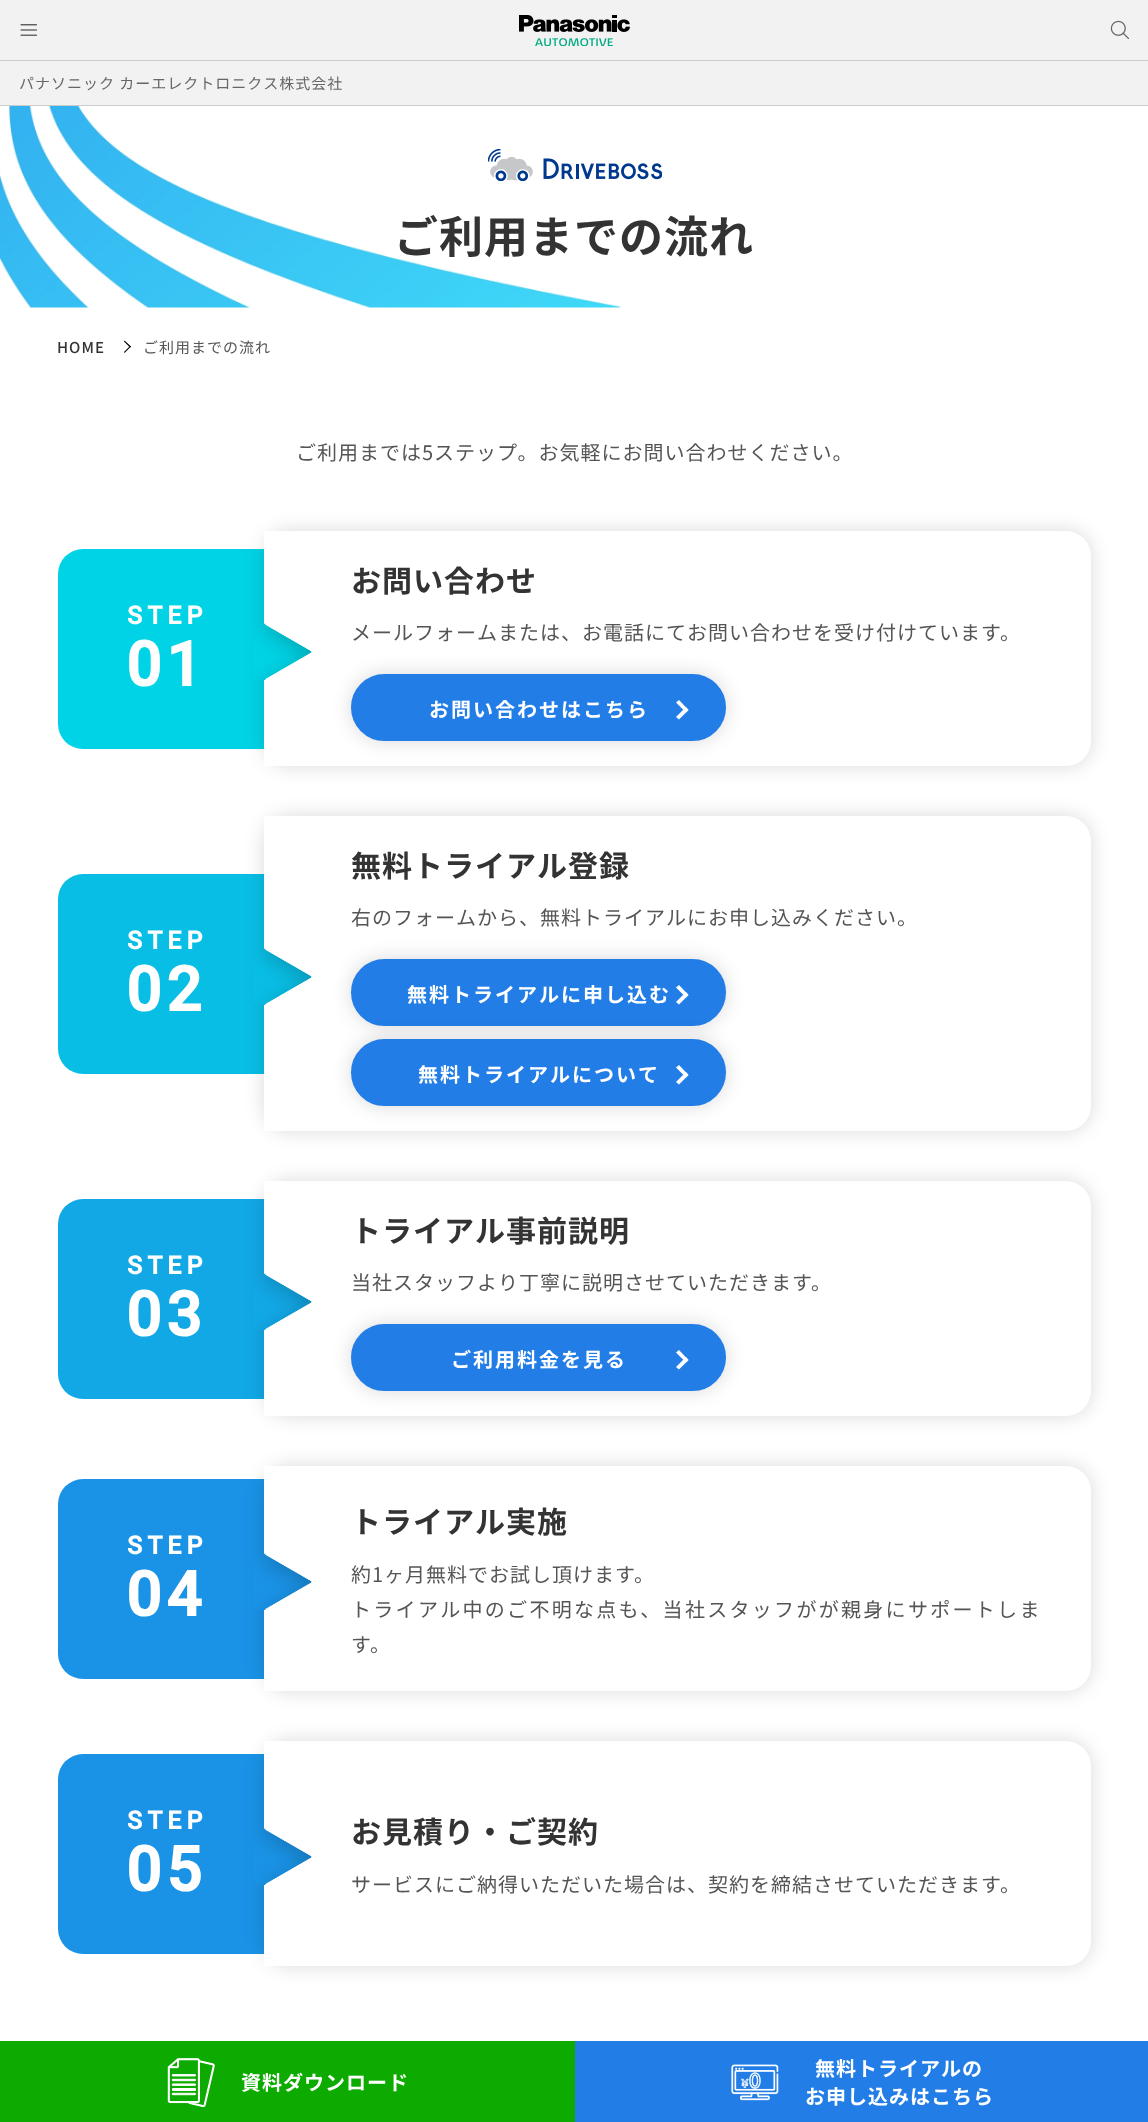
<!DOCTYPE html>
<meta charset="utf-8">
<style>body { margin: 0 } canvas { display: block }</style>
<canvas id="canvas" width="1148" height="2122"></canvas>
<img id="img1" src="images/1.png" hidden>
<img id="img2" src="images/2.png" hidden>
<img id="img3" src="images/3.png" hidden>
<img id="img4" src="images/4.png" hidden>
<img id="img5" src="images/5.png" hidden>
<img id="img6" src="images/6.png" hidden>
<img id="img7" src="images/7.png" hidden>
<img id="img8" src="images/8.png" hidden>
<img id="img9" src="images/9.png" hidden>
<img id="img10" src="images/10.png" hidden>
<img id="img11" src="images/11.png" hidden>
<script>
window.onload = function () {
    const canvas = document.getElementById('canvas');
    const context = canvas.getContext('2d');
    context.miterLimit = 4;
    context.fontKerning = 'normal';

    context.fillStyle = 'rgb(255, 255, 255)';
    context.fillRect(0, 0, 1148, 2122);
    context.fillStyle = 'rgb(242, 242, 242)';
    context.fillRect(0, 0, 1148, 105);
    context.drawImage(document.getElementById('img1'), 20, 24, 17, 12);
    context.drawImage(document.getElementById('img2'), 519, 15, 111, 31);
    context.drawImage(document.getElementById('img3'), 1110, 20, 19, 19);
    context.fillStyle = 'rgb(204, 204, 204)';
    context.fillRect(0, 60, 1148, 1);
    context.fillRect(0, 105, 1148, 1);
    context.drawImage(document.getElementById('img4'), 0, 106, 621, 202);
    context.drawImage(document.getElementById('img5'), 488, 149, 174, 32);
    context.fillStyle = 'rgb(0, 0, 0)';
    context.beginPath();
    context.moveTo(124.5, 340.5);
    context.lineTo(131, 346.5);
    context.lineTo(130, 347.5);
    context.lineTo(124, 341.5);
    context.closePath();
    context.fill();
    context.beginPath();
    context.moveTo(130, 346);
    context.lineTo(131, 346.5);
    context.lineTo(124.5, 353);
    context.lineTo(124, 352);
    context.closePath();
    context.fill();
    context.fillStyle = 'rgb(0, 211, 229)';
    context.beginPath();
    context.roundRect(58, 549, 268, 200, [25, 0, 0, 25]);
    context.fill();
    context.fillStyle = 'rgba(0, 0, 0, 0.15)';
    context.filter = 'blur(9.5px)';
    context.beginPath();
    context.roundRect(264, 531, 827, 235, 25);
    context.fill();
    context.filter = 'none';
    context.fillStyle = 'rgb(255, 255, 255)';
    context.beginPath();
    context.roundRect(264, 531, 827, 235, [0, 25, 25, 0]);
    context.fill();
    context.drawImage(document.getElementById('img6'), 253, 623, 59, 57);
    context.fillStyle = 'rgba(0, 0, 0, 0.15)';
    context.filter = 'blur(9.5px)';
    context.beginPath();
    context.roundRect(351, 674, 375, 67, 33.5);
    context.fill();
    context.filter = 'none';
    context.fillStyle = 'rgb(35, 125, 230)';
    context.beginPath();
    context.roundRect(353, 676, 371, 63, 31.5);
    context.fill();
    context.strokeStyle = 'rgb(35, 125, 230)';
    context.lineWidth = 4;
    context.stroke();
    context.fillStyle = 'rgb(255, 255, 255)';
    context.beginPath();
    context.moveTo(679, 700);
    context.lineTo(688.5, 710);
    context.lineTo(686, 712.5);
    context.lineTo(676, 702.5);
    context.closePath();
    context.fill();
    context.beginPath();
    context.moveTo(686, 707);
    context.lineTo(688.5, 710);
    context.lineTo(679, 719.5);
    context.lineTo(676, 717);
    context.closePath();
    context.fill();
    context.fillStyle = 'rgb(9, 190, 229)';
    context.beginPath();
    context.roundRect(58, 874, 268, 200, [25, 0, 0, 25]);
    context.fill();
    context.fillStyle = 'rgba(0, 0, 0, 0.15)';
    context.filter = 'blur(9.5px)';
    context.beginPath();
    context.roundRect(264, 816, 827, 315, 25);
    context.fill();
    context.filter = 'none';
    context.fillStyle = 'rgb(255, 255, 255)';
    context.beginPath();
    context.roundRect(264, 816, 827, 315, [0, 25, 25, 0]);
    context.fill();
    context.drawImage(document.getElementById('img7'), 253, 948, 59, 57);
    context.fillStyle = 'rgba(0, 0, 0, 0.15)';
    context.filter = 'blur(9.5px)';
    context.beginPath();
    context.roundRect(351, 959, 375, 67, 33.5);
    context.fill();
    context.filter = 'none';
    context.fillStyle = 'rgb(35, 125, 230)';
    context.beginPath();
    context.roundRect(353, 961, 371, 63, 31.5);
    context.fill();
    context.stroke();
    context.fillStyle = 'rgb(255, 255, 255)';
    context.beginPath();
    context.moveTo(679, 985);
    context.lineTo(688.5, 995);
    context.lineTo(686, 997.5);
    context.lineTo(676, 987.5);
    context.closePath();
    context.fill();
    context.beginPath();
    context.moveTo(686, 992);
    context.lineTo(688.5, 995);
    context.lineTo(679, 1004.5);
    context.lineTo(676, 1002);
    context.closePath();
    context.fill();
    context.fillStyle = 'rgba(0, 0, 0, 0.15)';
    context.filter = 'blur(9.5px)';
    context.beginPath();
    context.roundRect(351, 1039, 375, 67, 33.5);
    context.fill();
    context.filter = 'none';
    context.fillStyle = 'rgb(35, 125, 230)';
    context.beginPath();
    context.roundRect(353, 1041, 371, 63, 31.5);
    context.fill();
    context.stroke();
    context.fillStyle = 'rgb(255, 255, 255)';
    context.beginPath();
    context.moveTo(679, 1065);
    context.lineTo(688.5, 1075);
    context.lineTo(686, 1077.5);
    context.lineTo(676, 1067.5);
    context.closePath();
    context.fill();
    context.beginPath();
    context.moveTo(686, 1072);
    context.lineTo(688.5, 1075);
    context.lineTo(679, 1084.5);
    context.lineTo(676, 1082);
    context.closePath();
    context.fill();
    context.fillStyle = 'rgb(18, 168, 230)';
    context.beginPath();
    context.roundRect(58, 1199, 268, 200, [25, 0, 0, 25]);
    context.fill();
    context.fillStyle = 'rgba(0, 0, 0, 0.15)';
    context.filter = 'blur(9.5px)';
    context.beginPath();
    context.roundRect(264, 1181, 827, 235, 25);
    context.fill();
    context.filter = 'none';
    context.fillStyle = 'rgb(255, 255, 255)';
    context.beginPath();
    context.roundRect(264, 1181, 827, 235, [0, 25, 25, 0]);
    context.fill();
    context.drawImage(document.getElementById('img8'), 253, 1273, 59, 57);
    context.fillStyle = 'rgba(0, 0, 0, 0.15)';
    context.filter = 'blur(9.5px)';
    context.beginPath();
    context.roundRect(351, 1324, 375, 67, 33.5);
    context.fill();
    context.filter = 'none';
    context.fillStyle = 'rgb(35, 125, 230)';
    context.beginPath();
    context.roundRect(353, 1326, 371, 63, 31.5);
    context.fill();
    context.stroke();
    context.fillStyle = 'rgb(255, 255, 255)';
    context.beginPath();
    context.moveTo(679, 1350);
    context.lineTo(688.5, 1360);
    context.lineTo(686, 1362.5);
    context.lineTo(676, 1352.5);
    context.closePath();
    context.fill();
    context.beginPath();
    context.moveTo(686, 1357);
    context.lineTo(688.5, 1360);
    context.lineTo(679, 1369.5);
    context.lineTo(676, 1367);
    context.closePath();
    context.fill();
    context.fillStyle = 'rgb(26, 147, 230)';
    context.beginPath();
    context.roundRect(58, 1479, 268, 200, [25, 0, 0, 25]);
    context.fill();
    context.fillStyle = 'rgba(0, 0, 0, 0.15)';
    context.filter = 'blur(9.5px)';
    context.beginPath();
    context.roundRect(264, 1466, 827, 225, 25);
    context.fill();
    context.filter = 'none';
    context.fillStyle = 'rgb(255, 255, 255)';
    context.beginPath();
    context.roundRect(264, 1466, 827, 225, [0, 25, 25, 0]);
    context.fill();
    context.drawImage(document.getElementById('img9'), 253, 1553, 59, 57);
    context.fillStyle = 'rgb(26, 147, 230)';
    context.beginPath();
    context.roundRect(58, 1754, 268, 200, [25, 0, 0, 25]);
    context.fill();
    context.fillStyle = 'rgba(0, 0, 0, 0.15)';
    context.filter = 'blur(9.5px)';
    context.beginPath();
    context.roundRect(264, 1741, 827, 225, 25);
    context.fill();
    context.filter = 'none';
    context.fillStyle = 'rgb(255, 255, 255)';
    context.beginPath();
    context.roundRect(264, 1741, 827, 225, [0, 25, 25, 0]);
    context.fill();
    context.drawImage(document.getElementById('img9'), 253, 1828, 59, 57);
    context.fillStyle = 'rgb(13, 170, 0)';
    context.fillRect(0, 2041, 575, 81);
    context.drawImage(document.getElementById('img10'), 167, 2058, 48, 50);
    context.fillStyle = 'rgb(35, 125, 230)';
    context.fillRect(575, 2041, 573, 81);
    context.drawImage(document.getElementById('img11'), 731, 2064, 48, 37);
    context.letterSpacing = '1px';
    context.font = '15px Noto Sans JP';
    context.fillStyle = 'rgb(102, 102, 102)';
    context.fillText('パナソニック カーエレクトロニクス株式会社', 19, 89);
    context.font = 'bold 44px Noto Sans JP';
    context.fillStyle = 'rgb(51, 51, 51)';
    context.fillText('ご利用までの流れ', 394, 253);
    context.font = '500 15px Noto Sans JP';
    context.fillText('HOME', 57, 353);
    context.font = '15px Noto Sans JP';
    context.fillStyle = 'rgb(85, 85, 85)';
    context.fillText('ご利用までの流れ', 143, 353);
    context.font = '20px Noto Sans JP';
    context.fillText('ご利用までは5ステップ。お気軽にお問い合わせください。', 296, 460);
    context.letterSpacing = '5px';
    context.font = 'bold 25px Roboto';
    context.fillStyle = 'rgb(255, 255, 255)';
    context.fillText('STEP', 127, 624);
    context.font = 'bold 62px Roboto';
    context.fillText('01', 126, 686);
    context.letterSpacing = '1px';
    context.font = 'bold 30px Noto Sans JP';
    context.fillStyle = 'rgb(51, 51, 51)';
    context.fillText('お問い合わせ', 351, 592);
    context.font = '20px Noto Sans JP';
    context.fillStyle = 'rgb(85, 85, 85)';
    context.fillText('メールフォームまたは、お電話にてお問い合わせを受け付けています。', 351, 640);
    context.letterSpacing = '2px';
    context.font = 'bold 20px Noto Sans JP';
    context.fillStyle = 'rgb(255, 255, 255)';
    context.fillText('お問い合わせはこちら', 429, 717);
    context.letterSpacing = '5px';
    context.font = 'bold 25px Roboto';
    context.fillText('STEP', 127, 949);
    context.font = 'bold 62px Roboto';
    context.fillText('02', 126, 1011);
    context.letterSpacing = '1px';
    context.font = 'bold 30px Noto Sans JP';
    context.fillStyle = 'rgb(51, 51, 51)';
    context.fillText('無料トライアル登録', 351, 877);
    context.font = '20px Noto Sans JP';
    context.fillStyle = 'rgb(85, 85, 85)';
    context.fillText('右のフォームから、無料トライアルにお申し込みください。', 351, 925);
    context.letterSpacing = '2px';
    context.font = 'bold 20px Noto Sans JP';
    context.fillStyle = 'rgb(255, 255, 255)';
    context.fillText('無料トライアルに申し込む', 407, 1002);
    context.fillText('無料トライアルについて', 418, 1082);
    context.letterSpacing = '5px';
    context.font = 'bold 25px Roboto';
    context.fillText('STEP', 127, 1274);
    context.font = 'bold 62px Roboto';
    context.fillText('03', 126, 1336);
    context.letterSpacing = '1px';
    context.font = 'bold 30px Noto Sans JP';
    context.fillStyle = 'rgb(51, 51, 51)';
    context.fillText('トライアル事前説明', 351, 1242);
    context.font = '20px Noto Sans JP';
    context.fillStyle = 'rgb(85, 85, 85)';
    context.fillText('当社スタッフより丁寧に説明させていただきます。', 351, 1290);
    context.letterSpacing = '2px';
    context.font = 'bold 20px Noto Sans JP';
    context.fillStyle = 'rgb(255, 255, 255)';
    context.fillText('ご利用料金を見る', 451, 1367);
    context.letterSpacing = '5px';
    context.font = 'bold 25px Roboto';
    context.fillText('STEP', 127, 1554);
    context.font = 'bold 62px Roboto';
    context.fillText('04', 126, 1616);
    context.letterSpacing = '1px';
    context.font = 'bold 30px Noto Sans JP';
    context.fillStyle = 'rgb(51, 51, 51)';
    context.fillText('トライアル実施', 351, 1533);
    context.font = '20px Noto Sans JP';
    context.fillStyle = 'rgb(85, 85, 85)';
    context.fillText('約1ヶ月無料でお試し頂けます。', 351, 1582);
    context.letterSpacing = '2.3px';
    context.fillText('トライアル中のご不明な点も、当社スタッフがが親身にサポートしま', 351, 1617);
    context.letterSpacing = '1px';
    context.fillText('す。', 351, 1652);
    context.letterSpacing = '5px';
    context.font = 'bold 25px Roboto';
    context.fillStyle = 'rgb(255, 255, 255)';
    context.fillText('STEP', 127, 1829);
    context.font = 'bold 62px Roboto';
    context.fillText('05', 126, 1891);
    context.letterSpacing = '1px';
    context.font = 'bold 30px Noto Sans JP';
    context.fillStyle = 'rgb(51, 51, 51)';
    context.fillText('お見積り・ご契約', 351, 1843);
    context.font = '20px Noto Sans JP';
    context.fillStyle = 'rgb(85, 85, 85)';
    context.fillText('サービスにご納得いただいた場合は、契約を締結させていただきます。', 351, 1892);
    context.font = 'bold 20px Noto Sans JP';
    context.fillStyle = 'rgb(255, 255, 255)';
    context.fillText('資料ダウンロード', 241, 2090);
    context.fillText('無料トライアルの', 815, 2076);
    context.fillText('お申し込みはこちら', 805, 2104);
};
</script>
